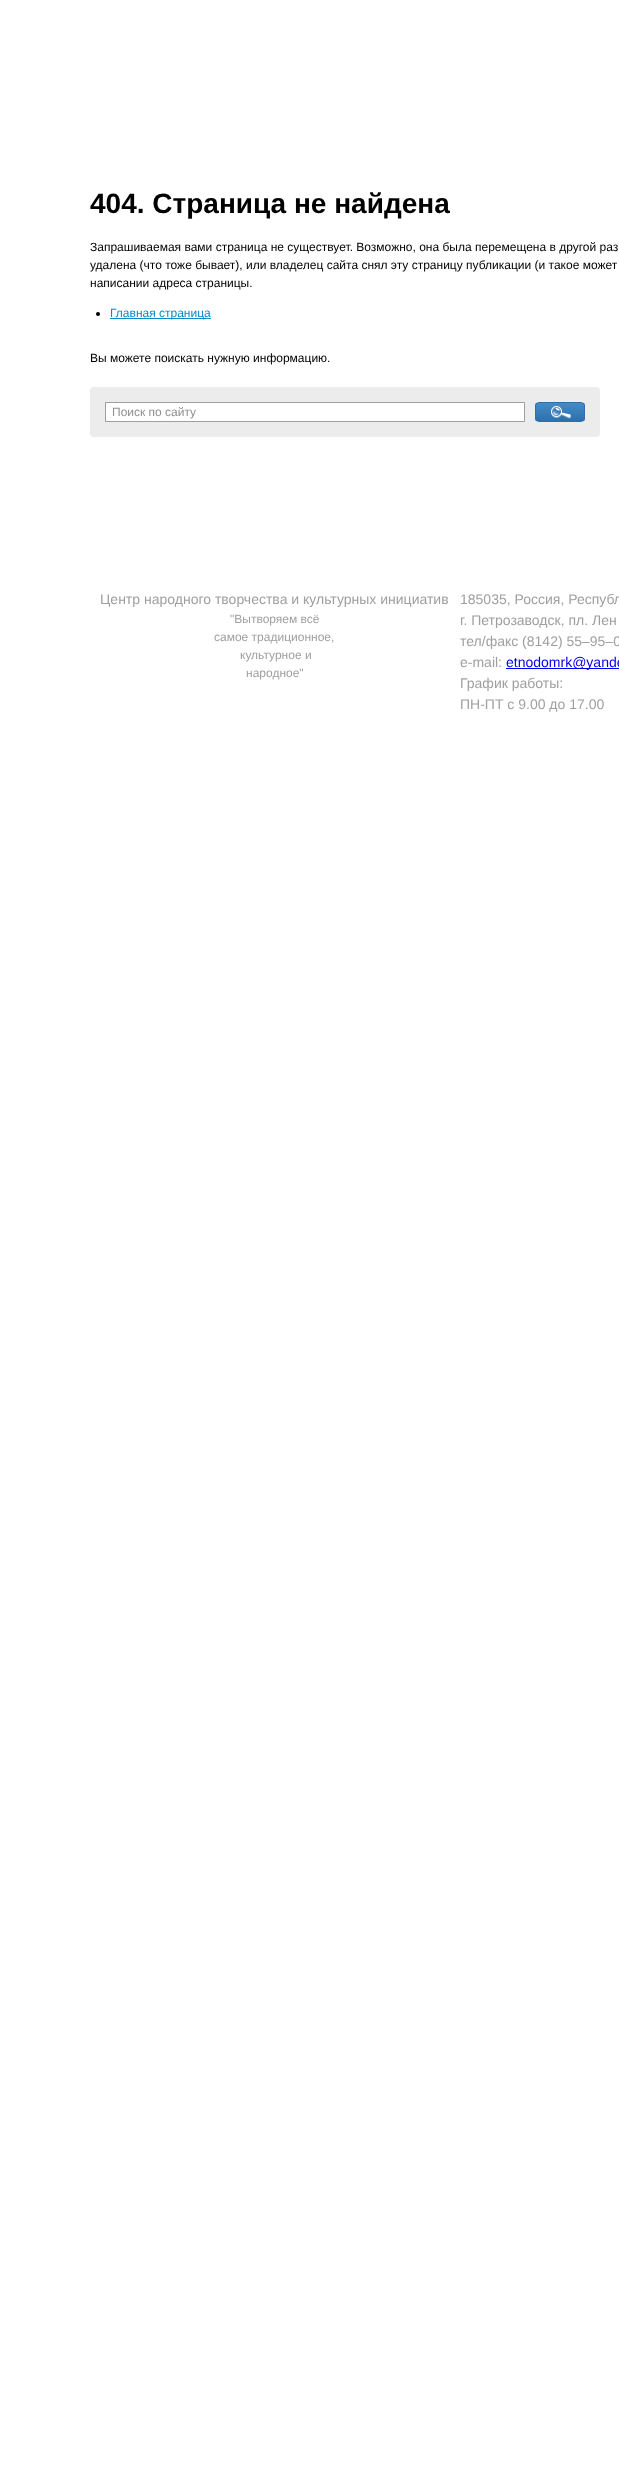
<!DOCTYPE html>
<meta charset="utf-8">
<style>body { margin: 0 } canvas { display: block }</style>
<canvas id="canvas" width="619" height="2477"></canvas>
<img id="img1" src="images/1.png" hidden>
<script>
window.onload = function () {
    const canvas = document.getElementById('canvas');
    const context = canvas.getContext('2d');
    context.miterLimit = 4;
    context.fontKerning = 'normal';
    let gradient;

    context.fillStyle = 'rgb(255, 255, 255)';
    context.fillRect(0, 0, 619, 2477);
    context.fillStyle = 'rgb(0, 0, 0)';
    context.beginPath();
    context.arc(98, 314, 2, 0, 2 * Math.PI);
    context.fill();
    context.fillStyle = 'rgb(13, 137, 199)';
    context.fillRect(110, 318, 101, 1);
    context.fillStyle = 'rgb(236, 236, 236)';
    context.beginPath();
    context.roundRect(90, 387, 510, 50, 4);
    context.fill();
    context.fillStyle = 'rgb(255, 255, 255)';
    context.beginPath();
    context.rect(105.5, 402.5, 419, 19);
    context.fill();
    context.strokeStyle = 'rgb(159, 159, 159)';
    context.stroke();
    context.save();
    context.beginPath();
    context.roundRect(535, 402, 50, 20, 4);
    context.clip();
    gradient = context.createLinearGradient(560, 403, 560, 421);
    gradient.addColorStop(0, 'rgb(66, 139, 202)');
    gradient.addColorStop(1, 'rgb(47, 112, 169)');
    context.fillStyle = gradient;
    context.fillRect(535, 403, 50, 18);
    context.restore();
    context.beginPath();
    context.roundRect(535.5, 402.5, 49, 19, 3.5);
    context.strokeStyle = 'rgb(47, 112, 169)';
    context.stroke();
    context.drawImage(document.getElementById('img1'), 551, 406, 20, 13);
    context.fillStyle = 'rgb(0, 0, 238)';
    context.fillRect(506, 668, 113, 1);
    context.font = 'bold 28px Liberation Sans';
    context.fillStyle = 'rgb(0, 0, 0)';
    context.fillText('404. Страница не найдена', 90, 213);
    context.font = '12px Liberation Sans';
    context.fillText('Запрашиваемая вами страница не существует. Возможно, она была перемещена в другой раз', 90, 251);
    context.fillText('удалена (что тоже бывает), или владелец сайта снял эту страницу публикации (и такое может', 90, 269);
    context.fillText('написании адреса страницы.', 90, 287);
    context.fillStyle = 'rgb(13, 137, 199)';
    context.fillText('Главная страница', 110, 317);
    context.fillStyle = 'rgb(0, 0, 0)';
    context.fillText('Вы можете поискать нужную информацию.', 90, 362);
    context.fillStyle = 'rgb(144, 144, 144)';
    context.fillText('Поиск по сайту', 112, 416);
    context.font = '14px Liberation Sans';
    context.fillStyle = 'rgb(159, 159, 159)';
    context.fillText('Центр народного творчества и культурных инициатив', 100, 604);
    context.font = '12px Liberation Sans';
    context.fillText('"Вытворяем всё', 230, 623);
    context.fillText('самое традиционное,', 214, 641);
    context.fillText('культурное и', 240, 659);
    context.fillText('народное"', 246, 677);
    context.font = '14px Liberation Sans';
    context.fillText('185035, Россия, Республ', 460, 604);
    context.fillText('г. Петрозаводск, пл. Лен', 460, 625);
    context.fillText('тел/факс (8142) 55–95–0', 460, 646);
    context.fillText('e-mail:', 460, 667);
    context.fillStyle = 'rgb(0, 0, 238)';
    context.fillText('etnodomrk@yande', 506, 667);
    context.fillStyle = 'rgb(159, 159, 159)';
    context.fillText('График работы:', 460, 688);
    context.fillText('ПН-ПТ с 9.00 до 17.00', 460, 709);
};
</script>
